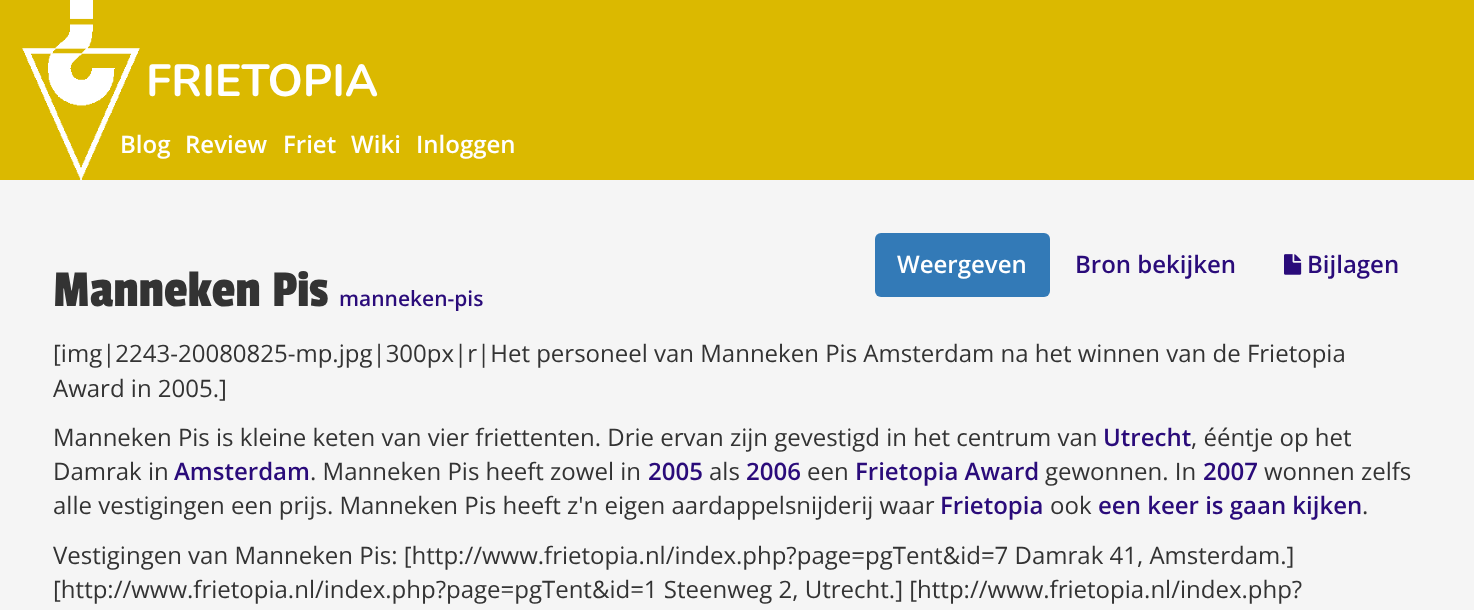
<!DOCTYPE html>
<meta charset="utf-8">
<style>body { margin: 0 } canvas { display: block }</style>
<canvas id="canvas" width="1474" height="610"></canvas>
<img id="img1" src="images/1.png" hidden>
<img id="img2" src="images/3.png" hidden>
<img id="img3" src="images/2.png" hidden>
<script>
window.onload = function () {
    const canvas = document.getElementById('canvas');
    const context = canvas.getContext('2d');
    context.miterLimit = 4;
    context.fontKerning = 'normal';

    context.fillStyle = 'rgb(245, 245, 245)';
    context.fillRect(0, 0, 1474, 610);
    context.fillStyle = 'rgb(219, 185, 0)';
    context.fillRect(0, 0, 1474, 180);
    context.drawImage(document.getElementById('img1'), 22, 0, 118, 113);
    context.fillStyle = 'rgb(51, 122, 183)';
    context.beginPath();
    context.roundRect(875, 233, 175, 64, 6);
    context.fill();
    context.drawImage(document.getElementById('img2'), 1284, 254, 18, 21);
    context.font = 'bold 45px Nunito';
    context.fillStyle = 'rgb(255, 255, 255)';
    context.fillText('FRIETOPIA', 146, 96);
    context.font = '600 24px Open Sans';
    context.fillText('Blog', 120, 153);
    context.drawImage(document.getElementById('img3'), 22, 0, 118, 180);
    context.fillText('Review', 185, 153);
    context.fillText('Friet', 283, 153);
    context.fillText('Wiki', 351, 153);
    context.fillText('Inloggen', 416, 153);
    context.fillText('Weergeven', 897, 273);
    context.fillStyle = 'rgb(42, 11, 122)';
    context.fillText('Bron bekijken', 1075, 273);
    context.fillText('Bijlagen', 1307, 273);
    context.font = '54px Passion One';
    context.fillStyle = 'rgb(51, 51, 51)';
    context.fillText('Manneken Pis', 53, 306);
    context.font = '600 21px Open Sans';
    context.fillStyle = 'rgb(42, 11, 122)';
    context.fillText('manneken-pis', 339, 306);
    context.font = '24px Open Sans';
    context.fillStyle = 'rgb(51, 51, 51)';
    context.fillText('[img|2243-20080825-mp.jpg|300px|r|Het personeel van Manneken Pis Amsterdam na het winnen van de Frietopia', 53, 362);
    context.fillText('Award in 2005.]', 53, 397);
    context.fillText('Manneken Pis is kleine keten van vier friettenten. Drie ervan zijn gevestigd in het centrum van', 53, 446);
    context.font = '600 24px Open Sans';
    context.fillStyle = 'rgb(42, 11, 122)';
    context.fillText('Utrecht', 1103, 446);
    context.font = '24px Open Sans';
    context.fillStyle = 'rgb(51, 51, 51)';
    context.fillText(', ééntje op het', 1191, 446);
    context.fillText('Damrak in', 53, 480);
    context.font = '600 24px Open Sans';
    context.fillStyle = 'rgb(42, 11, 122)';
    context.fillText('Amsterdam', 174, 480);
    context.font = '24px Open Sans';
    context.fillStyle = 'rgb(51, 51, 51)';
    context.fillText('. Manneken Pis heeft zowel in', 310, 480);
    context.font = '600 24px Open Sans';
    context.fillStyle = 'rgb(42, 11, 122)';
    context.fillText('2005', 648, 480);
    context.font = '24px Open Sans';
    context.fillStyle = 'rgb(51, 51, 51)';
    context.fillText('als', 709, 480);
    context.font = '600 24px Open Sans';
    context.fillStyle = 'rgb(42, 11, 122)';
    context.fillText('2006', 746, 480);
    context.font = '24px Open Sans';
    context.fillStyle = 'rgb(51, 51, 51)';
    context.fillText('een', 807, 480);
    context.font = '600 24px Open Sans';
    context.fillStyle = 'rgb(42, 11, 122)';
    context.fillText('Frietopia Award', 855, 480);
    context.font = '24px Open Sans';
    context.fillStyle = 'rgb(51, 51, 51)';
    context.fillText('gewonnen. In', 1045, 480);
    context.font = '600 24px Open Sans';
    context.fillStyle = 'rgb(42, 11, 122)';
    context.fillText('2007', 1203, 480);
    context.font = '24px Open Sans';
    context.fillStyle = 'rgb(51, 51, 51)';
    context.fillText('wonnen zelfs', 1264, 480);
    context.fillText('alle vestigingen een prijs. Manneken Pis heeft z\'n eigen aardappelsnijderij waar', 53, 514);
    context.font = '600 24px Open Sans';
    context.fillStyle = 'rgb(42, 11, 122)';
    context.fillText('Frietopia', 940, 514);
    context.font = '24px Open Sans';
    context.fillStyle = 'rgb(51, 51, 51)';
    context.fillText('ook', 1050, 514);
    context.font = '600 24px Open Sans';
    context.fillStyle = 'rgb(42, 11, 122)';
    context.fillText('een keer is gaan kijken', 1098, 514);
    context.font = '24px Open Sans';
    context.fillStyle = 'rgb(51, 51, 51)';
    context.fillText('.', 1362, 514);
    context.fillText('Vestigingen van Manneken Pis: [http://www.frietopia.nl/index.php?page=pgTent&id=7 Damrak 41, Amsterdam.]', 53, 564);
    context.fillText('[http://www.frietopia.nl/index.php?page=pgTent&id=1 Steenweg 2, Utrecht.] [http://www.frietopia.nl/index.php?', 53, 598);
};
</script>
